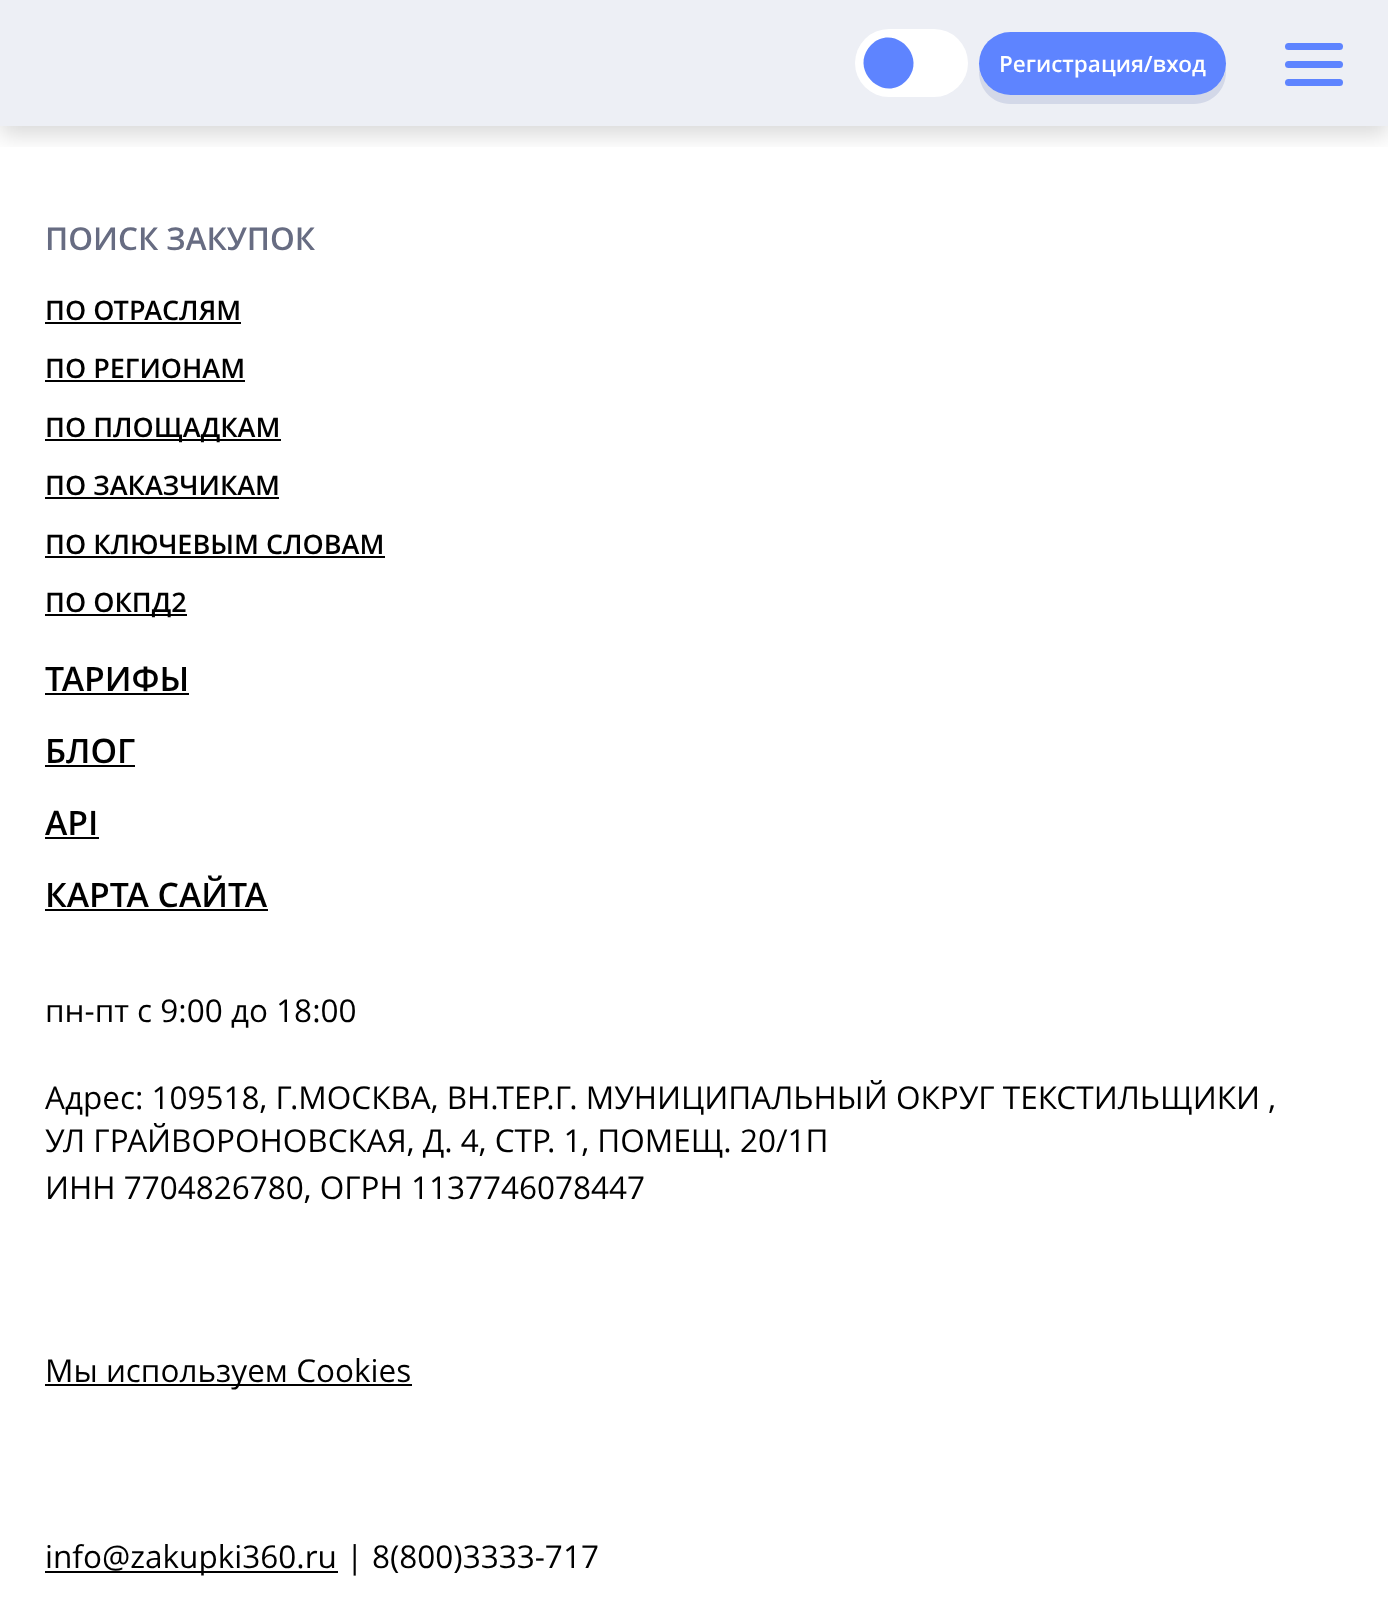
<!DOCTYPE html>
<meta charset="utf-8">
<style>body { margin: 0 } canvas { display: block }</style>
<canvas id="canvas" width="1388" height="1616"></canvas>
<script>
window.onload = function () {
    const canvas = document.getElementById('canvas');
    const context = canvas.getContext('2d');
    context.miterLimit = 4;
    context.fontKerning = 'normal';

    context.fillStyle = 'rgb(237, 239, 245)';
    context.fillRect(0, 0, 1388, 1616);
    context.fillStyle = 'rgb(255, 255, 255)';
    context.fillRect(0, 126, 1388, 1490);
    context.save();
    context.beginPath();
    context.rect(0, 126, 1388, 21);
    context.clip();
    context.fillStyle = 'rgba(0, 0, 0, 0.15)';
    context.filter = 'blur(11px)';
    context.beginPath();
    context.rect(0, 9, 1388, 126);
    context.fill();
    context.filter = 'none';
    context.restore();
    context.beginPath();
    context.roundRect(855, 29, 113, 68, 34);
    context.fill();
    context.fillStyle = 'rgb(94, 132, 255)';
    context.beginPath();
    context.moveTo(871, 45);
    context.bezierCurveTo(894, 22, 929, 57, 906, 81);
    context.bezierCurveTo(883, 104, 848, 69, 871, 45);
    context.closePath();
    context.fill();
    context.fillStyle = 'rgb(211, 216, 232)';
    context.beginPath();
    context.moveTo(979, 69);
    context.lineTo(979, 72);
    context.bezierCurveTo(979, 90, 993, 104, 1010, 104);
    context.lineTo(1194, 104);
    context.bezierCurveTo(1212, 104, 1226, 90, 1226, 72);
    context.lineTo(1226, 69);
    context.bezierCurveTo(1223, 83, 1210, 94, 1195, 94);
    context.lineTo(1010, 94);
    context.bezierCurveTo(995, 94, 982, 83, 979, 69);
    context.closePath();
    context.fill();
    context.fillStyle = 'rgb(94, 132, 255)';
    context.beginPath();
    context.roundRect(979, 32, 247, 63, 31.5);
    context.fill();
    context.beginPath();
    context.roundRect(1285, 43, 58, 7, 3.5);
    context.fill();
    context.beginPath();
    context.roundRect(1285, 61, 58, 7, 3.5);
    context.fill();
    context.beginPath();
    context.roundRect(1285, 79, 58, 7, 3.5);
    context.fill();
    context.fillStyle = 'rgb(0, 0, 0)';
    context.fillRect(45, 322, 196, 2);
    context.fillRect(45, 380, 200, 2);
    context.fillRect(45, 439, 236, 2);
    context.fillRect(45, 497, 234, 2);
    context.fillRect(45, 556, 340, 2);
    context.fillRect(45, 614, 142, 2);
    context.fillRect(45, 693, 144, 2);
    context.fillRect(45, 765, 90, 2);
    context.fillRect(45, 837, 54, 2);
    context.fillRect(45, 909, 223, 2);
    context.fillRect(45, 1384, 367, 2);
    context.fillRect(45, 1571, 293, 2);
    context.font = '600 22.5px Open Sans';
    context.fillStyle = 'rgb(255, 255, 255)';
    context.fillText('Регистрация/вход', 999, 72);
    context.font = '600 31.5px Open Sans';
    context.fillStyle = 'rgb(103, 108, 130)';
    context.fillText('ПОИСК ЗАКУПОК', 45, 250);
    context.font = '600 27px Open Sans';
    context.fillStyle = 'rgb(0, 0, 0)';
    context.fillText('ПО ОТРАСЛЯМ', 45, 320);
    context.fillText('ПО РЕГИОНАМ', 45, 378);
    context.fillText('ПО ПЛОЩАДКАМ', 45, 437);
    context.fillText('ПО ЗАКАЗЧИКАМ', 45, 495);
    context.fillText('ПО КЛЮЧЕВЫМ СЛОВАМ', 45, 554);
    context.fillText('ПО ОКПД2', 45, 612);
    context.font = '600 33.75px Open Sans';
    context.fillText('ТАРИФЫ', 45, 691);
    context.fillText('БЛОГ', 45, 763);
    context.fillText('API', 45, 835);
    context.fillText('КАРТА САЙТА', 45, 907);
    context.font = '31.5px Open Sans';
    context.fillText('пн-пт с 9:00 до 18:00', 45, 1022);
    context.fillText('Адрес: 109518, Г.МОСКВА, ВН.ТЕР.Г. МУНИЦИПАЛЬНЫЙ ОКРУГ ТЕКСТИЛЬЩИКИ ,', 45, 1109);
    context.fillText('УЛ ГРАЙВОРОНОВСКАЯ, Д. 4, СТР. 1, ПОМЕЩ. 20/1П', 45, 1152);
    context.fillText('ИНН 7704826780, ОГРН 1137746078447', 45, 1199);
    context.fillText('Мы используем Cookies', 45, 1382);
    context.fillText('info@zakupki360.ru', 45, 1568);
    context.fillText('|', 346, 1568);
    context.fillText('8(800)3333-717', 372, 1568);
};
</script>
